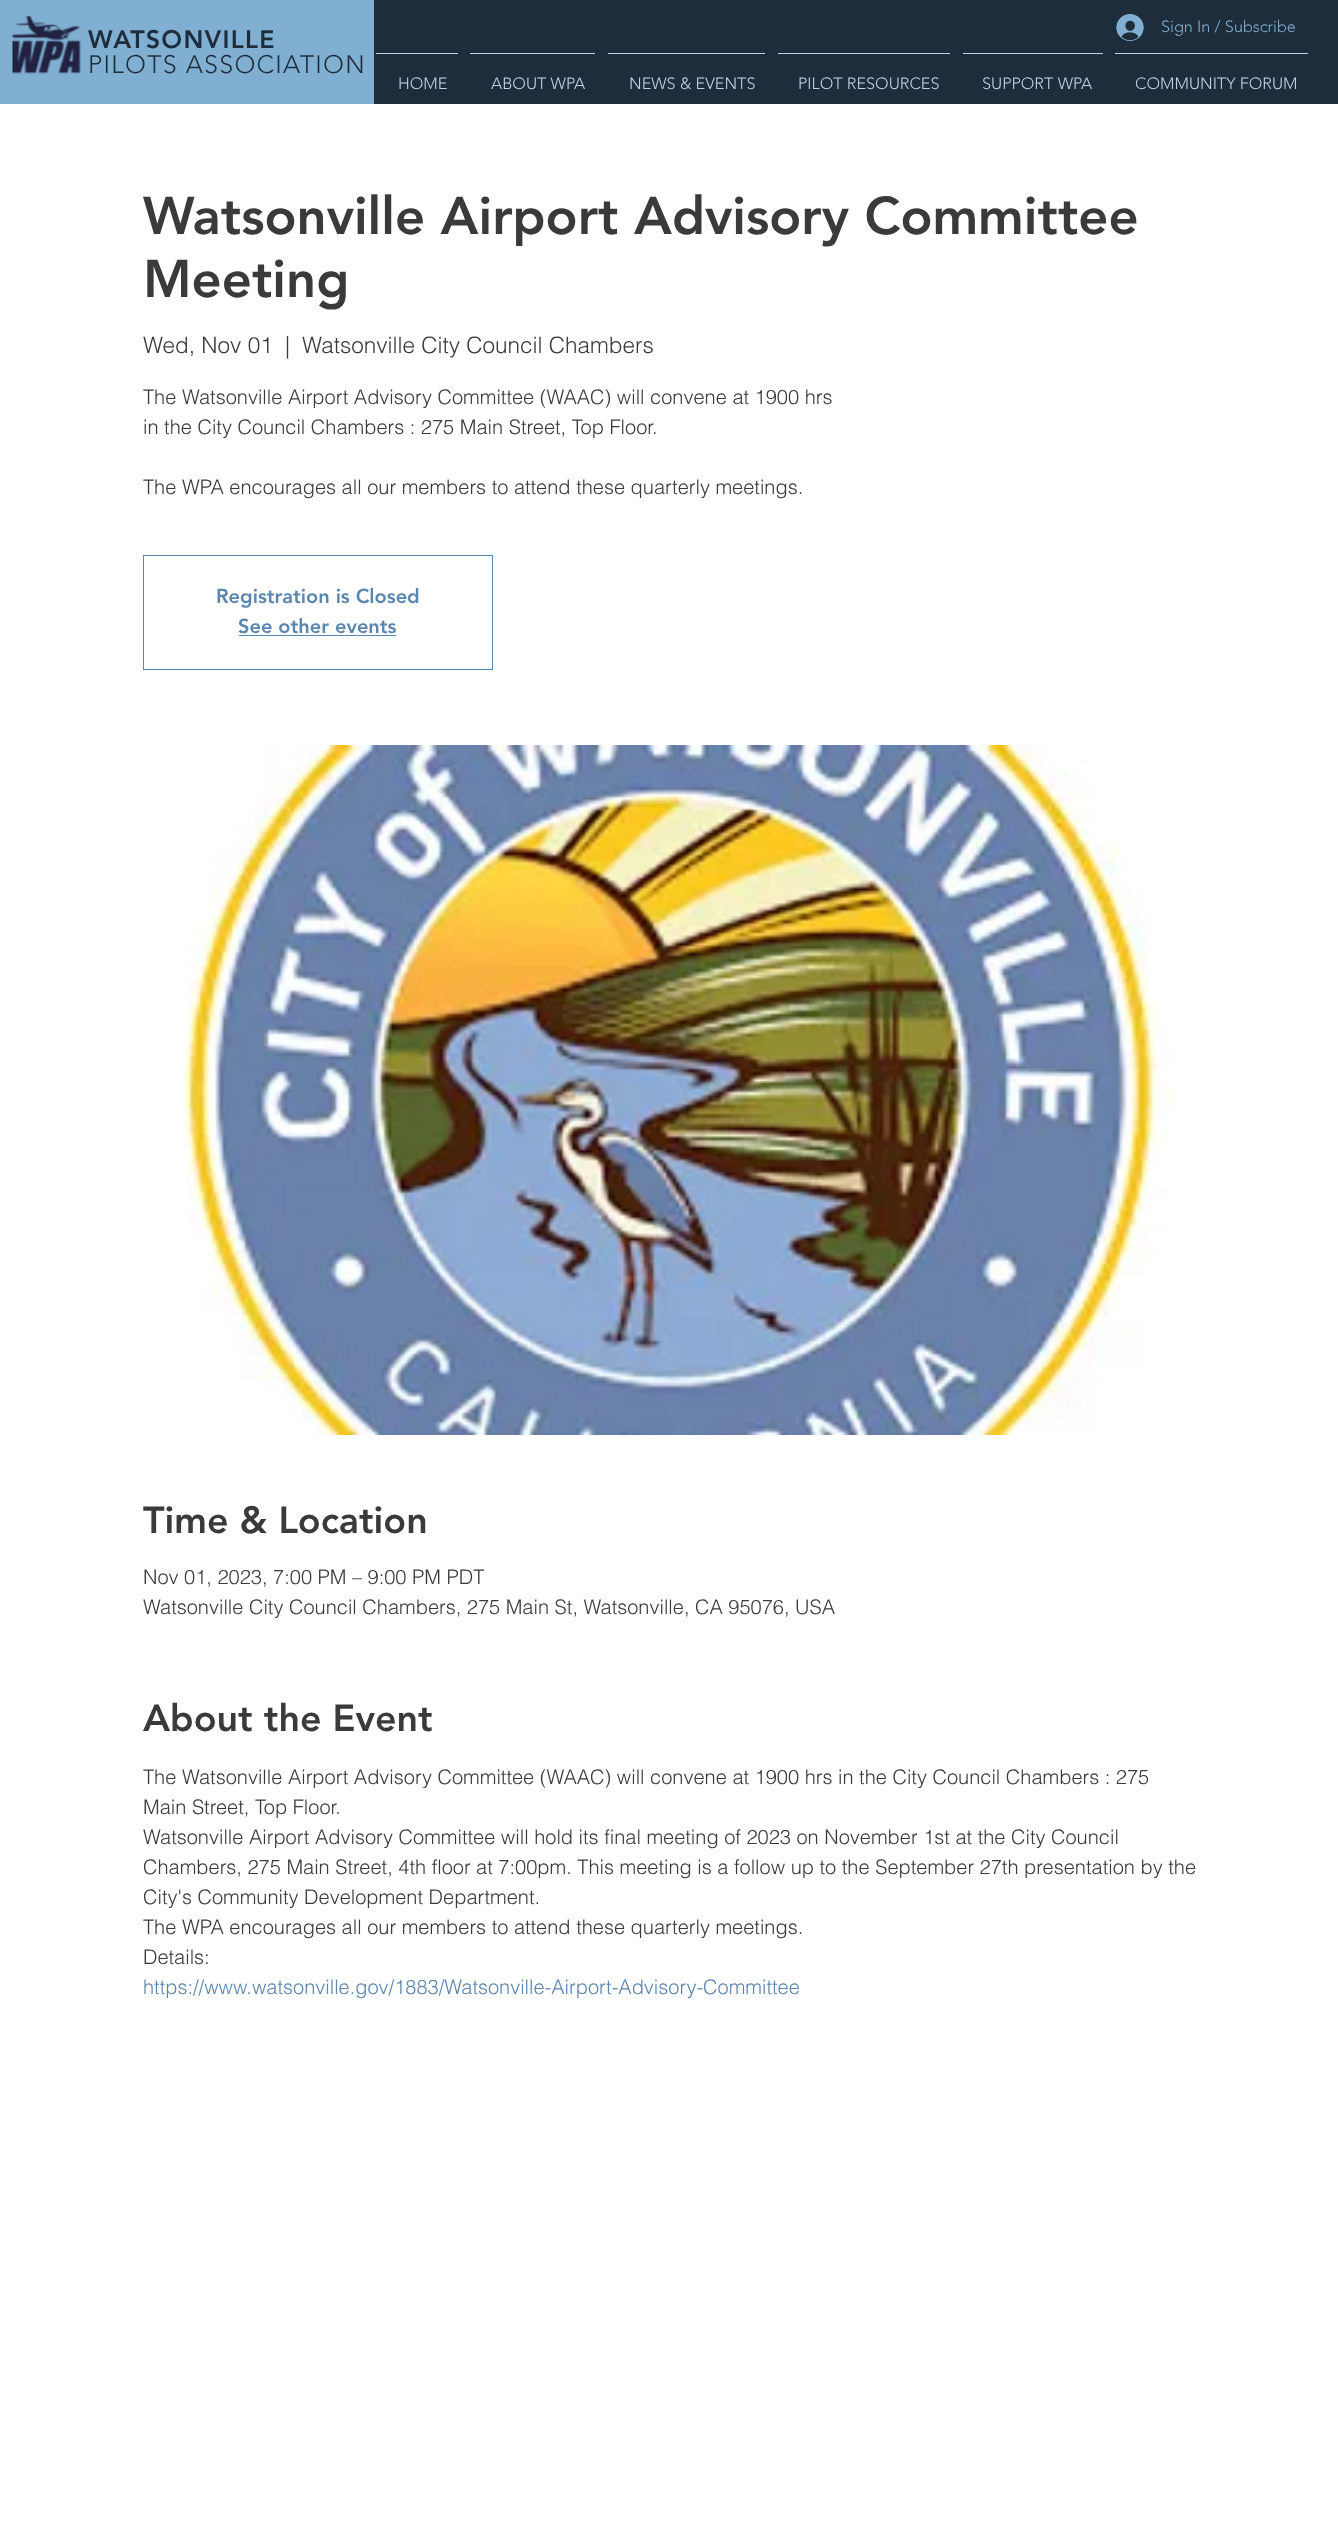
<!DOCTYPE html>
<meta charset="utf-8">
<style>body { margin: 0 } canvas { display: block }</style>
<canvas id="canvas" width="1338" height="2521"></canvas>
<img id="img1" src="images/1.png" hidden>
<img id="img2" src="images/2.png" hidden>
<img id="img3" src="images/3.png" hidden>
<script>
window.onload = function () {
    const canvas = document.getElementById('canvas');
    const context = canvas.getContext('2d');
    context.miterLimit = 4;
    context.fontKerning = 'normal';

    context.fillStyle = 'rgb(255, 255, 255)';
    context.fillRect(0, 0, 1338, 2521);
    context.fillStyle = 'rgb(30, 45, 59)';
    context.fillRect(374, 0, 964, 104);
    context.fillStyle = 'rgb(128, 175, 209)';
    context.fillRect(0, 0, 374, 104);
    context.drawImage(document.getElementById('img1'), 12, 16, 69, 58);
    context.drawImage(document.getElementById('img2'), 1116, 14, 28, 27);
    context.fillStyle = 'rgb(192, 210, 229)';
    context.fillRect(376, 53, 82, 1);
    context.fillRect(470, 53, 125, 1);
    context.fillRect(608, 53, 157, 1);
    context.fillRect(778, 53, 172, 1);
    context.fillRect(963, 53, 140, 1);
    context.fillRect(1115, 53, 193, 1);
    context.strokeStyle = 'rgb(91, 134, 176)';
    context.strokeRect(143.5, 555.5, 349, 114);
    context.fillStyle = 'rgb(91, 134, 176)';
    context.fillRect(239, 635, 157, 1);
    context.drawImage(document.getElementById('img3'), 183, 745, 989, 690);
    context.letterSpacing = '1.25px';
    context.font = '900 25px "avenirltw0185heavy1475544"';
    context.fillStyle = 'rgb(30, 45, 59)';
    context.fillText('WATSONVILLE', 88, 48);
    context.font = '300 25px "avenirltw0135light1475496"';
    context.fillText('PILOTS ASSOCIATION', 88, 73);
    context.letterSpacing = '0px';
    context.font = '300 16.25px "avenirltw0135light1475496"';
    context.fillStyle = 'rgb(128, 175, 209)';
    context.fillText('Sign In / Subscribe', 1161, 32);
    context.fillStyle = 'rgb(192, 210, 229)';
    context.fillText('HOME', 398, 89);
    context.fillText('ABOUT WPA', 491, 89);
    context.fillText('NEWS & EVENTS', 629, 89);
    context.fillText('PILOT RESOURCES', 798, 89);
    context.fillText('SUPPORT WPA', 982, 89);
    context.fillText('COMMUNITY FORUM', 1135, 89);
    context.font = '900 52.5px "avenirltw0185heavy1475544"';
    context.fillStyle = 'rgb(59, 58, 58)';
    context.fillText('Watsonville Airport Advisory Committee', 143, 234);
    context.fillText('Meeting', 143, 297);
    context.font = '300 22.5px helvetica';
    context.fillText('Wed, Nov 01', 143, 353);
    context.fillText('|', 285, 353);
    context.fillText('Watsonville City Council Chambers', 302, 353);
    context.font = '300 20px helvetica';
    context.fillText('The Watsonville Airport Advisory Committee (WAAC) will convene at 1900 hrs', 143, 404);
    context.fillText('in the City Council Chambers : 275 Main Street, Top Floor.', 143, 434);
    context.fillText('The WPA encourages all our members to attend these quarterly meetings.', 143, 494);
    context.font = '900 20px "avenirltw0185heavy1475544"';
    context.fillStyle = 'rgb(91, 134, 176)';
    context.fillText('Registration is Closed', 216, 603);
    context.fillText('See other events', 238, 633);
    context.font = '900 37.5px "avenirltw0185heavy1475544"';
    context.fillStyle = 'rgb(59, 58, 58)';
    context.fillText('Time & Location', 143, 1533);
    context.font = '300 20px helvetica';
    context.fillText('Nov 01, 2023, 7:00 PM – 9:00 PM PDT', 143, 1584);
    context.fillText('Watsonville City Council Chambers, 275 Main St, Watsonville, CA 95076, USA', 143, 1614);
    context.font = '900 37.5px "avenirltw0185heavy1475544"';
    context.fillText('About the Event', 143, 1731);
    context.font = '300 20px helvetica';
    context.fillText('The Watsonville Airport Advisory Committee (WAAC) will convene at 1900 hrs in the City Council Chambers : 275', 143, 1784);
    context.fillText('Main Street, Top Floor.', 143, 1814);
    context.fillText('Watsonville Airport Advisory Committee will hold its final meeting of 2023 on November 1st at the City Council', 143, 1844);
    context.fillText('Chambers, 275 Main Street, 4th floor at 7:00pm. This meeting is a follow up to the September 27th presentation by the', 143, 1874);
    context.fillText('City\'s Community Development Department.', 143, 1904);
    context.fillText('The WPA encourages all our members to attend these quarterly meetings.', 143, 1934);
    context.fillText('Details:', 143, 1964);
    context.fillStyle = 'rgb(91, 134, 176)';
    context.fillText('https://www.watsonville.gov/1883/Watsonville-Airport-Advisory-Committee', 143, 1994);
};
</script>
